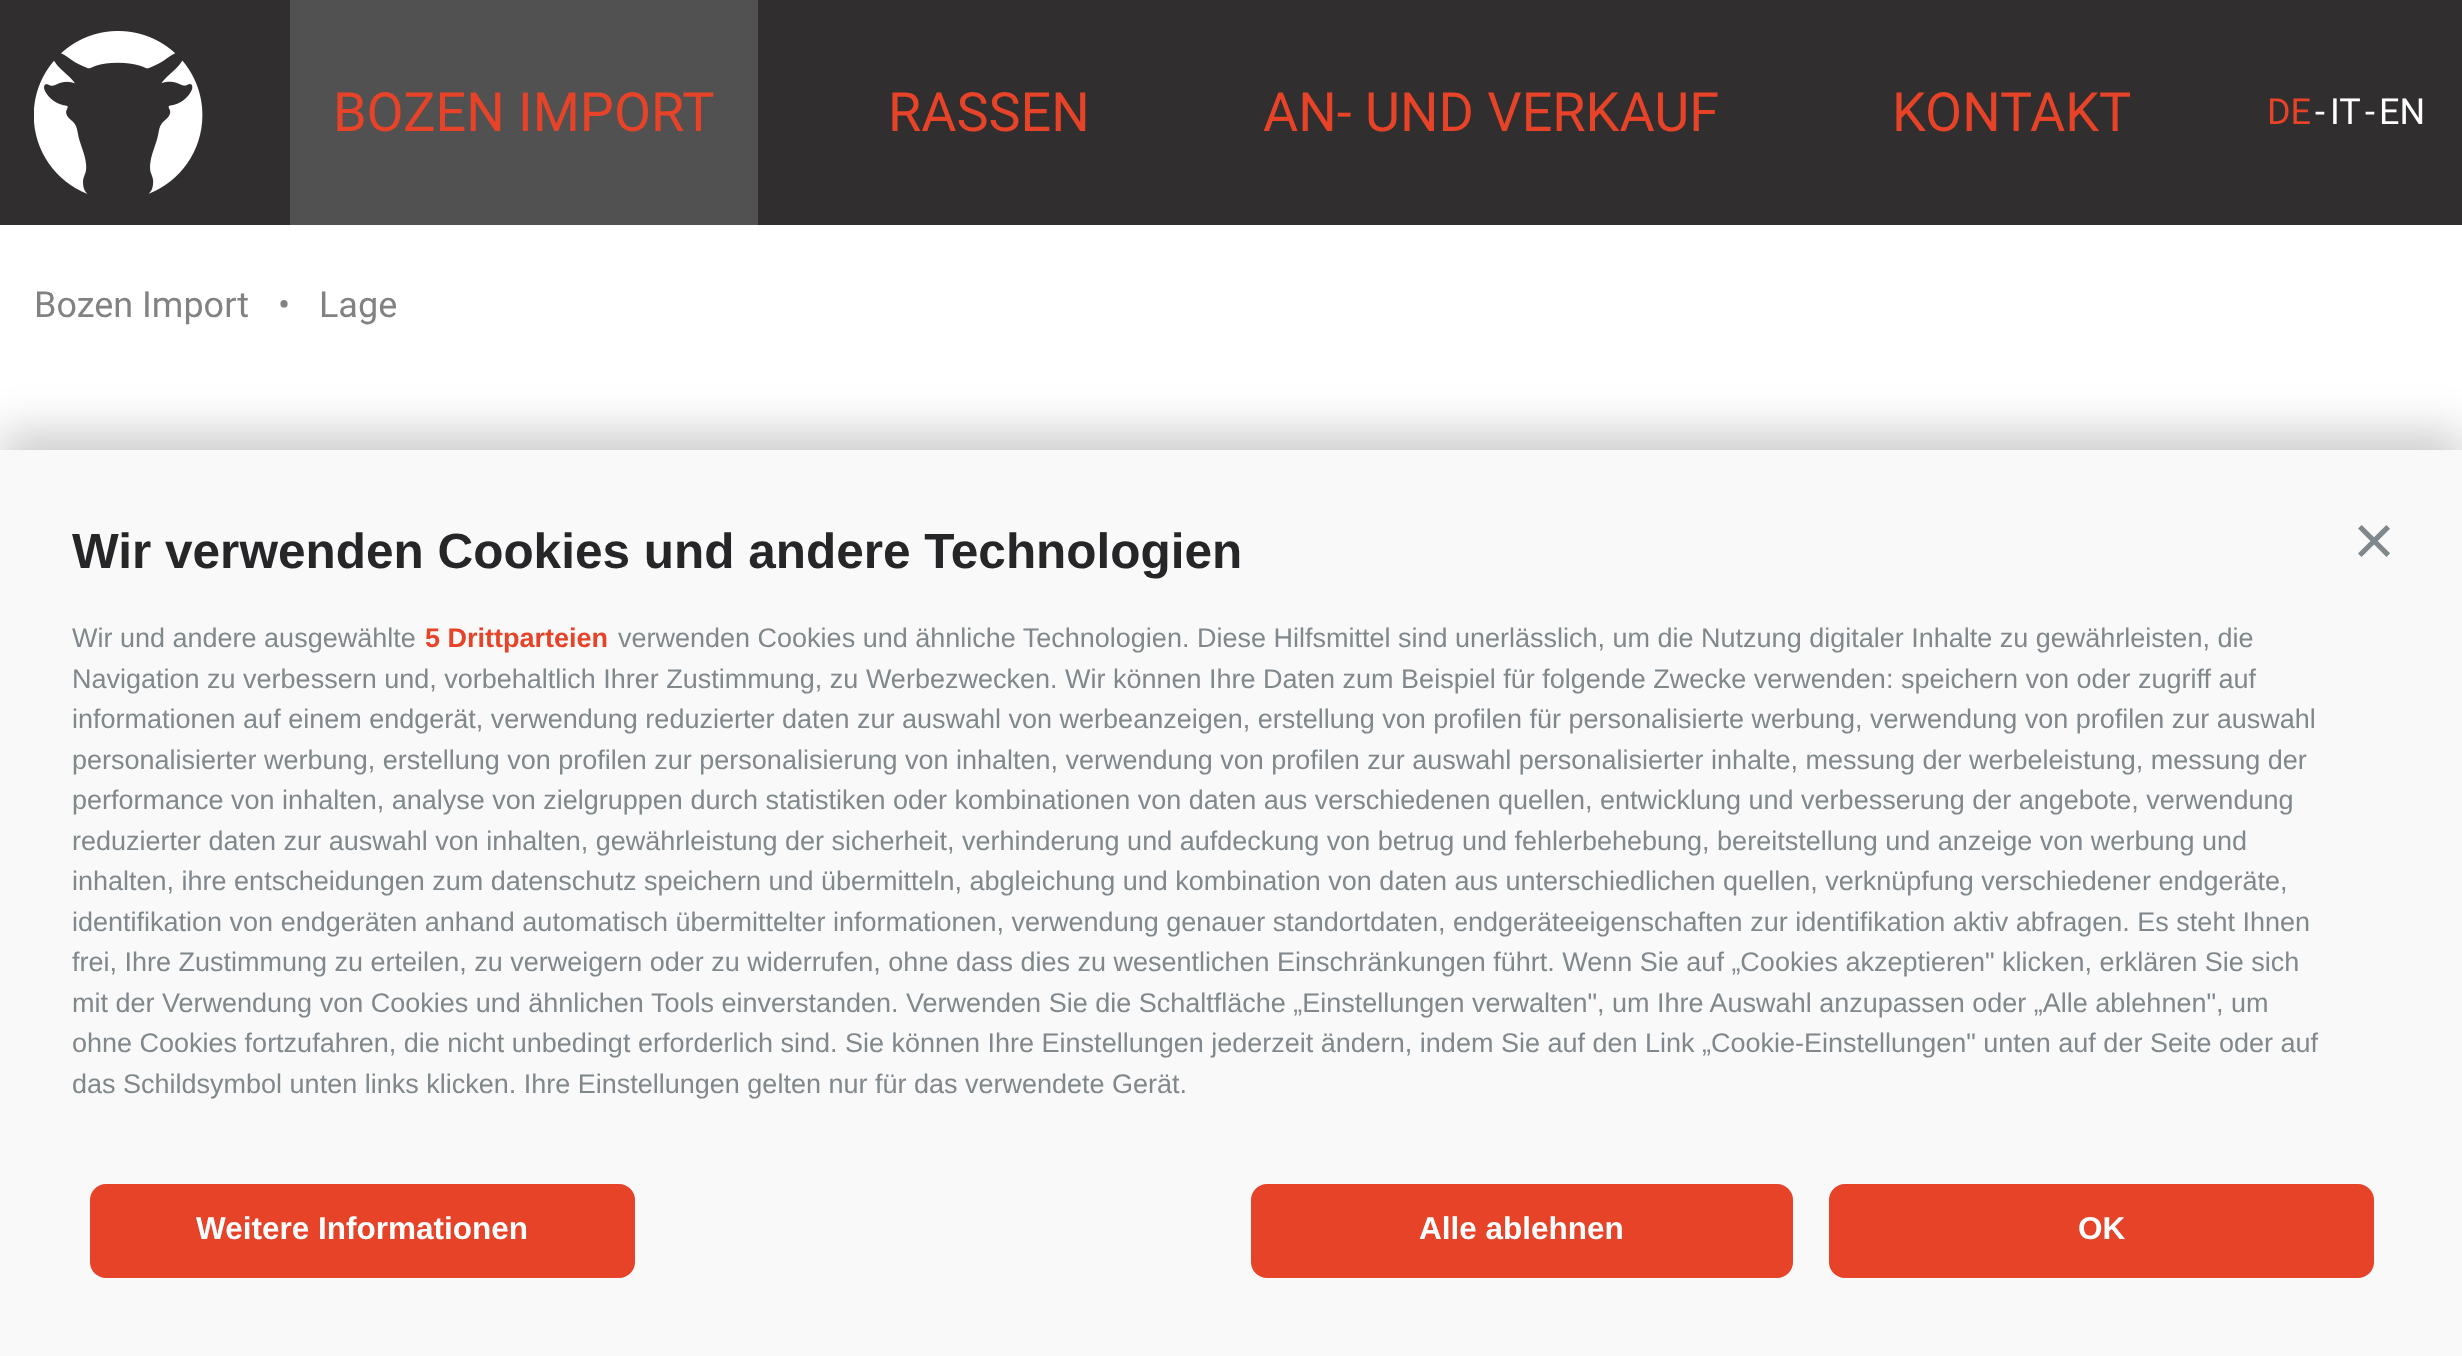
<!DOCTYPE html>
<meta charset="utf-8">
<style>body { margin: 0 } canvas { display: block }</style>
<canvas id="canvas" width="2462" height="1356"></canvas>
<img id="img1" src="images/1.png" hidden>
<script>
window.onload = function () {
    const canvas = document.getElementById('canvas');
    const context = canvas.getContext('2d');
    context.miterLimit = 4;
    context.fontKerning = 'normal';

    context.fillStyle = 'rgb(255, 255, 255)';
    context.fillRect(0, 0, 2462, 1356);
    context.fillStyle = 'rgb(48, 46, 46)';
    context.fillRect(0, 0, 2462, 225);
    context.drawImage(document.getElementById('img1'), 34, 31, 169, 163);
    context.fillStyle = 'rgb(82, 81, 81)';
    context.fillRect(290, 0, 468, 225);
    context.fillStyle = 'rgba(0, 0, 0, 0.2)';
    context.filter = 'blur(22.5px)';
    context.beginPath();
    context.rect(0, 432, 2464, 907);
    context.fill();
    context.filter = 'none';
    context.fillStyle = 'rgb(249, 249, 249)';
    context.fillRect(0, 450, 2462, 906);
    context.fillStyle = 'rgb(230, 67, 40)';
    context.beginPath();
    context.roundRect(90, 1184, 545, 94, 16);
    context.fill();
    context.beginPath();
    context.roundRect(1251, 1184, 542, 94, 16);
    context.fill();
    context.beginPath();
    context.roundRect(1829, 1184, 545, 94, 16);
    context.fill();
    context.font = '54px Roboto';
    context.fillText('BOZEN IMPORT', 333, 131);
    context.fillText('RASSEN', 888, 131);
    context.fillText('AN- UND VERKAUF', 1263, 131);
    context.fillText('KONTAKT', 1892, 131);
    context.font = '36px Roboto';
    context.fillText('DE', 2267, 124);
    context.fillStyle = 'rgb(255, 255, 255)';
    context.fillText('-', 2315, 124);
    context.fillText('IT', 2330, 124);
    context.fillText('-', 2365, 124);
    context.fillText('EN', 2379, 124);
    context.fillStyle = 'rgb(131, 130, 130)';
    context.fillText('Bozen Import', 34, 317);
    context.fillText('•', 278, 317);
    context.fillText('Lage', 319, 317);
    context.font = 'bold 49.5px Liberation Sans';
    context.fillStyle = 'rgb(38, 38, 40)';
    context.fillText('Wir verwenden Cookies und andere Technologien', 72, 568);
    context.font = '72px Liberation Sans';
    context.fillStyle = 'rgb(128, 136, 140)';
    context.fillText('×', 2353, 565);
    context.font = '27px Liberation Sans';
    context.fillText('Wir und andere ausgewählte', 72, 647);
    context.font = 'bold 27px Liberation Sans';
    context.fillStyle = 'rgb(230, 67, 40)';
    context.fillText('5 Drittparteien', 425, 647);
    context.font = '27px Liberation Sans';
    context.fillStyle = 'rgb(128, 136, 140)';
    context.fillText('verwenden Cookies und ähnliche Technologien. Diese Hilfsmittel sind unerlässlich, um die Nutzung digitaler Inhalte zu gewährleisten, die', 618, 647);
    context.fillText('Navigation zu verbessern und, vorbehaltlich Ihrer Zustimmung, zu Werbezwecken. Wir können Ihre Daten zum Beispiel für folgende Zwecke verwenden: speichern von oder zugriff auf', 72, 688);
    context.fillText('informationen auf einem endgerät, verwendung reduzierter daten zur auswahl von werbeanzeigen, erstellung von profilen für personalisierte werbung, verwendung von profilen zur auswahl', 72, 728);
    context.fillText('personalisierter werbung, erstellung von profilen zur personalisierung von inhalten, verwendung von profilen zur auswahl personalisierter inhalte, messung der werbeleistung, messung der', 72, 769);
    context.fillText('performance von inhalten, analyse von zielgruppen durch statistiken oder kombinationen von daten aus verschiedenen quellen, entwicklung und verbesserung der angebote, verwendung', 72, 809);
    context.fillText('reduzierter daten zur auswahl von inhalten, gewährleistung der sicherheit, verhinderung und aufdeckung von betrug und fehlerbehebung, bereitstellung und anzeige von werbung und', 72, 850);
    context.fillText('inhalten, ihre entscheidungen zum datenschutz speichern und übermitteln, abgleichung und kombination von daten aus unterschiedlichen quellen, verknüpfung verschiedener endgeräte,', 72, 890);
    context.fillText('identifikation von endgeräten anhand automatisch übermittelter informationen, verwendung genauer standortdaten, endgeräteeigenschaften zur identifikation aktiv abfragen. Es steht Ihnen', 72, 931);
    context.fillText('frei, Ihre Zustimmung zu erteilen, zu verweigern oder zu widerrufen, ohne dass dies zu wesentlichen Einschränkungen führt. Wenn Sie auf „Cookies akzeptieren" klicken, erklären Sie sich', 72, 971);
    context.fillText('mit der Verwendung von Cookies und ähnlichen Tools einverstanden. Verwenden Sie die Schaltfläche „Einstellungen verwalten", um Ihre Auswahl anzupassen oder „Alle ablehnen", um', 72, 1012);
    context.fillText('ohne Cookies fortzufahren, die nicht unbedingt erforderlich sind. Sie können Ihre Einstellungen jederzeit ändern, indem Sie auf den Link „Cookie-Einstellungen" unten auf der Seite oder auf', 72, 1052);
    context.fillText('das Schildsymbol unten links klicken. Ihre Einstellungen gelten nur für das verwendete Gerät.', 72, 1093);
    context.font = 'bold 31.5px Liberation Sans';
    context.fillStyle = 'rgb(255, 255, 255)';
    context.fillText('Weitere Informationen', 196, 1239);
    context.fillText('Alle ablehnen', 1419, 1239);
    context.fillText('OK', 2078, 1239);
};
</script>
